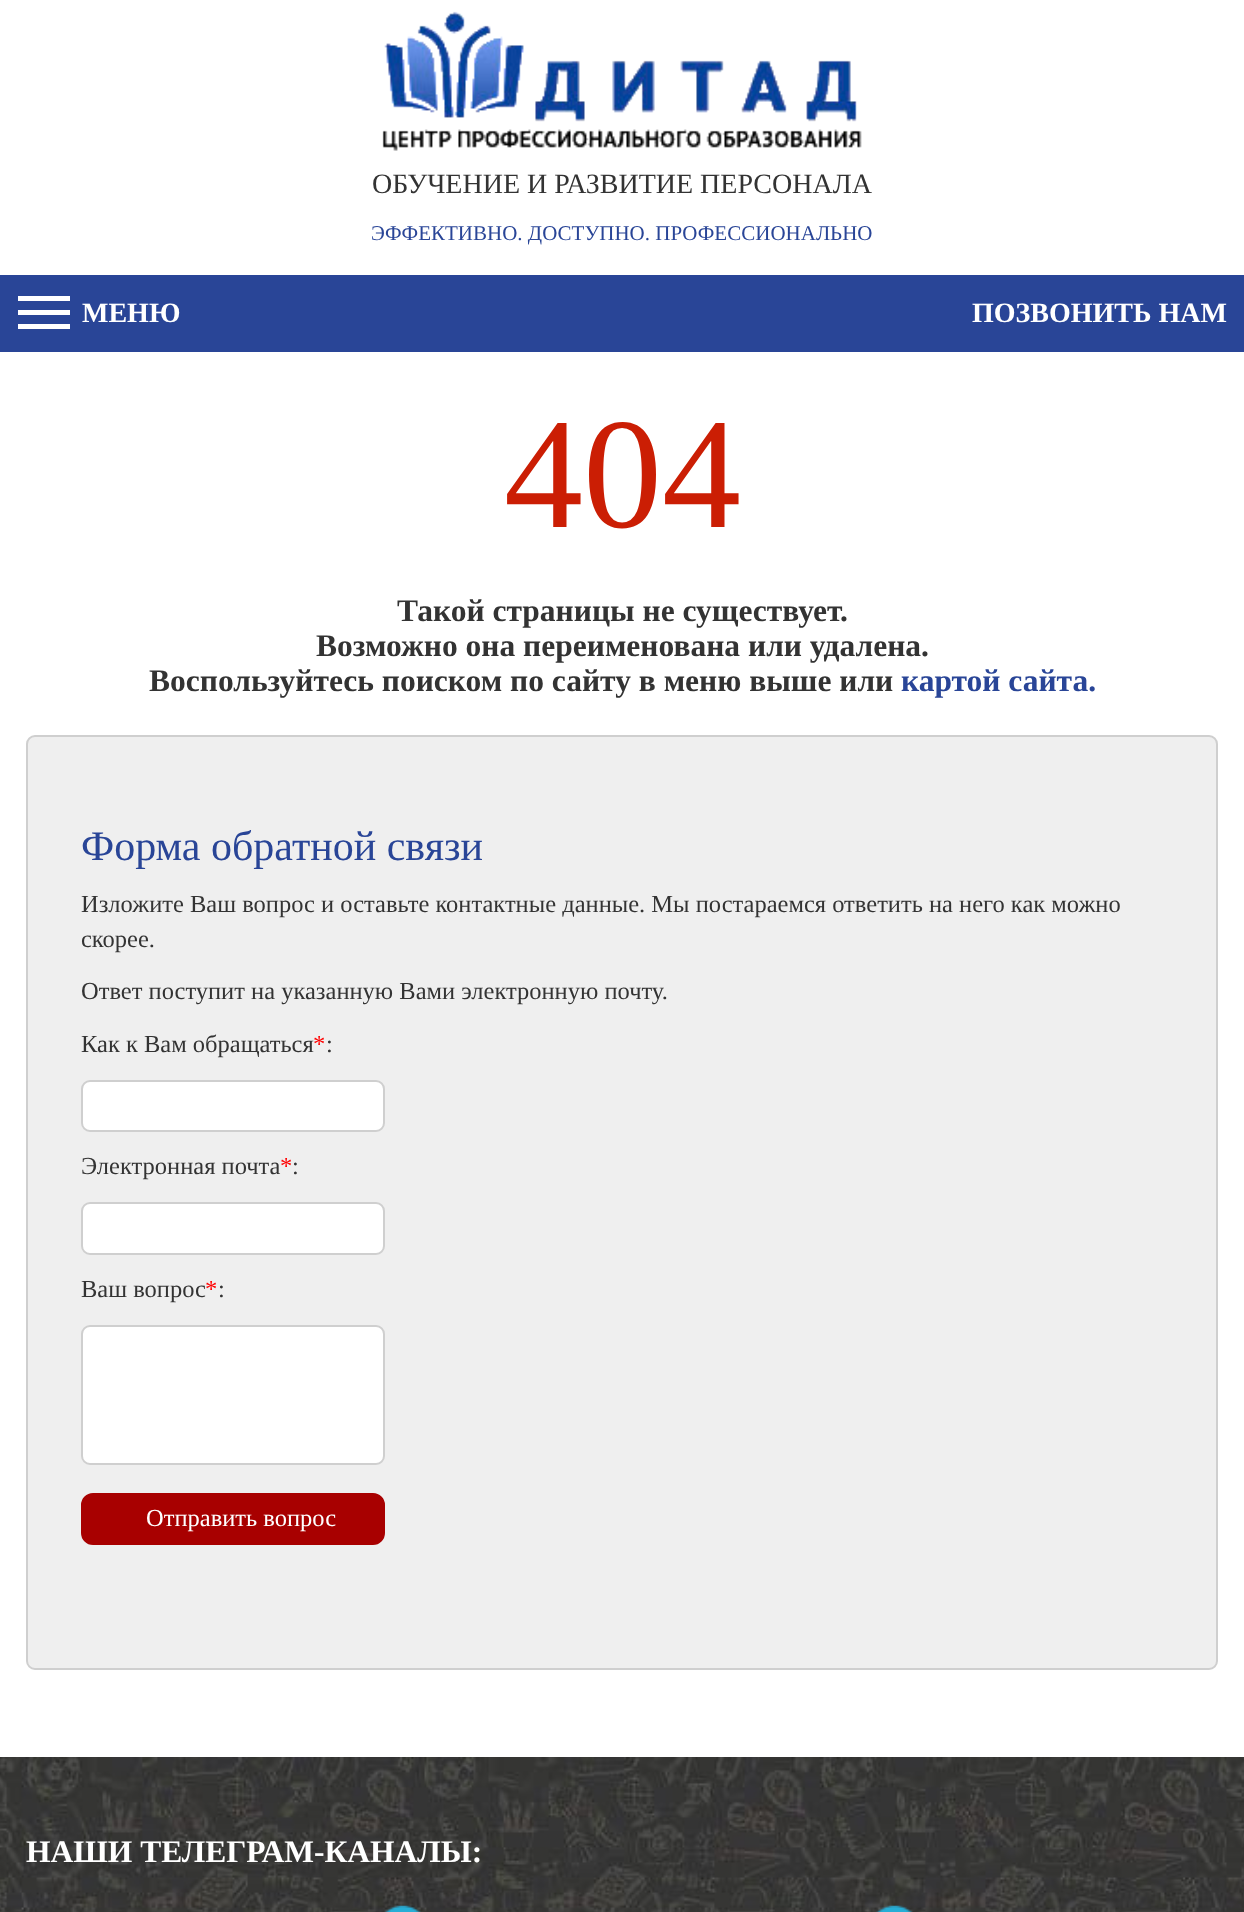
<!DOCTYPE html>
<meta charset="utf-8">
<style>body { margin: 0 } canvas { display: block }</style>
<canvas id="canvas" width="1244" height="1912"></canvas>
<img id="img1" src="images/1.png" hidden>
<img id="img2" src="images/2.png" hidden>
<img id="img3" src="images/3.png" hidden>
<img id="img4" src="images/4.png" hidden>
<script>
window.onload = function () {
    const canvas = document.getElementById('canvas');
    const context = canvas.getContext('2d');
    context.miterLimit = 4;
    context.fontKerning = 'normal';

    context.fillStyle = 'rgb(255, 255, 255)';
    context.fillRect(0, 0, 1244, 1912);
    context.drawImage(document.getElementById('img1'), 382, 11, 480, 140);
    context.fillStyle = 'rgb(41, 69, 151)';
    context.fillRect(0, 275, 1244, 77);
    context.fillStyle = 'rgb(255, 255, 255)';
    context.fillRect(18, 310, 52, 5);
    context.fillRect(18, 296, 52, 5);
    context.fillRect(18, 324, 52, 5);
    context.fillStyle = 'rgb(239, 239, 239)';
    context.beginPath();
    context.roundRect(27, 736, 1190, 933, 8);
    context.fill();
    context.strokeStyle = 'rgb(207, 207, 207)';
    context.lineWidth = 2;
    context.stroke();
    context.fillStyle = 'rgb(255, 255, 255)';
    context.beginPath();
    context.roundRect(82, 1081, 302, 50, 8);
    context.fill();
    context.stroke();
    context.beginPath();
    context.roundRect(82, 1203, 302, 51, 8);
    context.fill();
    context.stroke();
    context.beginPath();
    context.roundRect(82, 1326, 302, 138, 8);
    context.fill();
    context.stroke();
    context.fillStyle = 'rgb(168, 0, 0)';
    context.beginPath();
    context.roundRect(82, 1494, 302, 50, 11);
    context.fill();
    context.strokeStyle = 'rgb(168, 0, 0)';
    context.stroke();
    context.drawImage(document.getElementById('img2'), 0, 1757, 1244, 155);
    context.drawImage(document.getElementById('img3'), 384, 1905, 37, 7);
    context.drawImage(document.getElementById('img4'), 876, 1905, 37, 7);
    context.font = '28px Liberation Serif';
    context.fillStyle = 'rgb(51, 51, 51)';
    context.fillText('ОБУЧЕНИЕ И РАЗВИТИЕ ПЕРСОНАЛА', 372, 193);
    context.font = '21px Liberation Serif';
    context.fillStyle = 'rgb(41, 69, 151)';
    context.fillText('ЭФФЕКТИВНО. ДОСТУПНО. ПРОФЕССИОНАЛЬНО', 371, 240);
    context.font = 'bold 28px Liberation Serif';
    context.fillStyle = 'rgb(255, 255, 255)';
    context.fillText('МЕНЮ', 82, 322);
    context.fillText('ПОЗВОНИТЬ НАМ', 972, 322);
    context.font = '158px Liberation Serif';
    context.fillStyle = 'rgb(203, 30, 4)';
    context.fillText('404', 504, 527);
    context.font = 'bold 31.5px Liberation Serif';
    context.fillStyle = 'rgb(51, 51, 51)';
    context.fillText('Такой страницы не существует.', 397, 621);
    context.fillText('Возможно она переименована или удалена.', 316, 656);
    context.fillText('Воспользуйтесь поиском по сайту в меню выше или', 149, 691);
    context.fillStyle = 'rgb(41, 69, 151)';
    context.fillText('картой сайта.', 901, 691);
    context.font = '42px Liberation Serif';
    context.fillText('Форма обратной связи', 81, 860);
    context.font = '24.5px Liberation Serif';
    context.fillStyle = 'rgb(51, 51, 51)';
    context.fillText('Изложите Ваш вопрос и оставьте контактные данные. Мы постараемся ответить на него как можно', 81, 912);
    context.fillText('скорее.', 81, 947);
    context.fillText('Ответ поступит на указанную Вами электронную почту.', 81, 999);
    context.fillText('Как к Вам обращаться', 81, 1052);
    context.fillStyle = 'rgb(255, 0, 0)';
    context.fillText('*', 313, 1052);
    context.fillStyle = 'rgb(51, 51, 51)';
    context.fillText(':', 326, 1052);
    context.fillText('Электронная почта', 81, 1174);
    context.fillStyle = 'rgb(255, 0, 0)';
    context.fillText('*', 280, 1174);
    context.fillStyle = 'rgb(51, 51, 51)';
    context.fillText(':', 292, 1174);
    context.fillText('Ваш вопрос', 81, 1297);
    context.fillStyle = 'rgb(255, 0, 0)';
    context.fillText('*', 205, 1297);
    context.fillStyle = 'rgb(51, 51, 51)';
    context.fillText(':', 218, 1297);
    context.fillStyle = 'rgb(255, 255, 255)';
    context.fillText('Отправить вопрос', 146, 1526);
    context.font = 'bold 31.5px Liberation Serif';
    context.fillText('НАШИ ТЕЛЕГРАМ-КАНАЛЫ:', 26, 1862);
};
</script>
